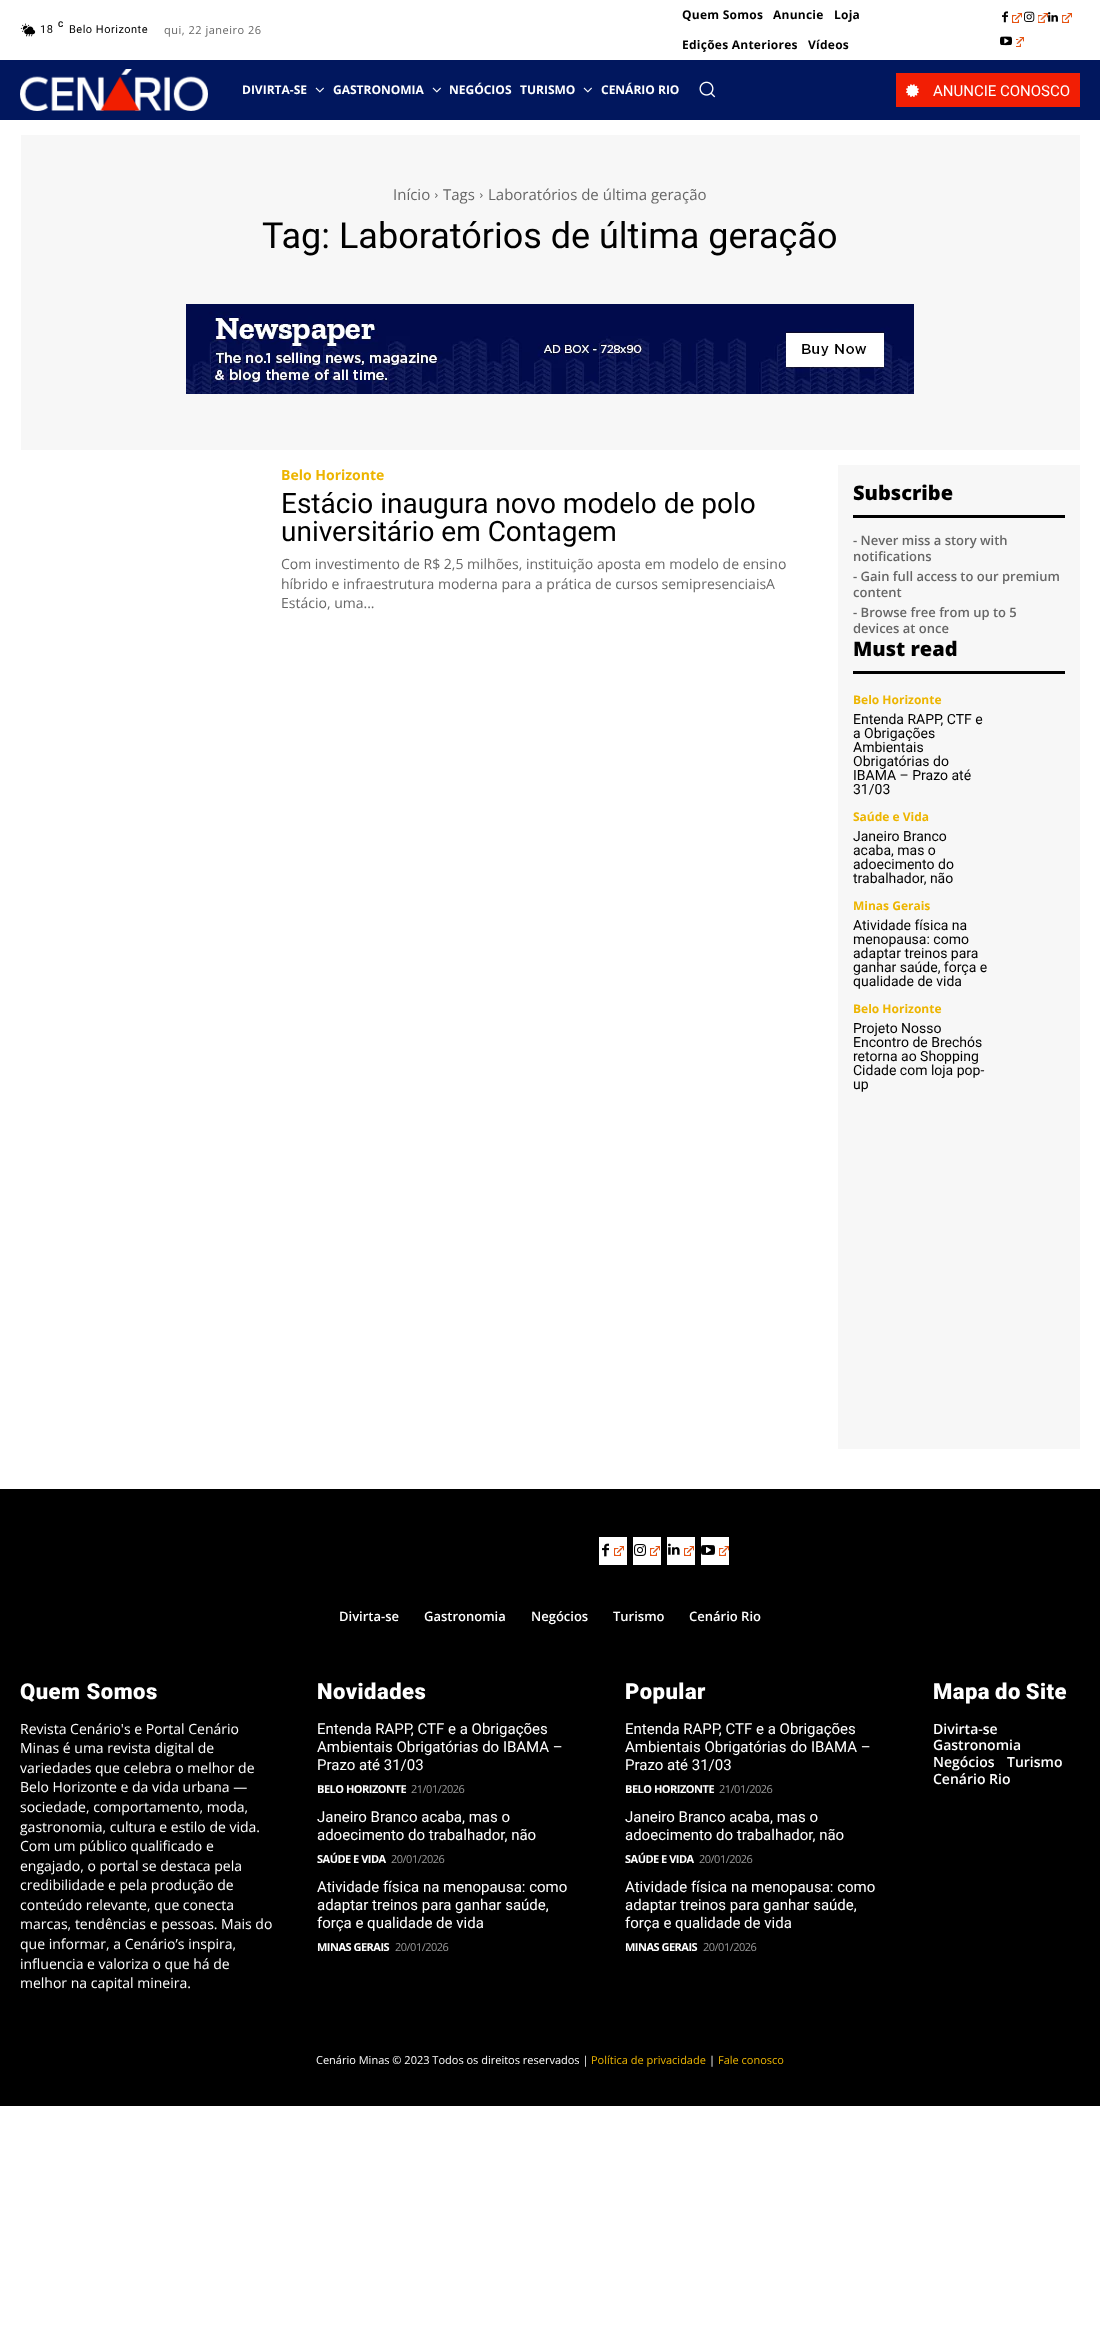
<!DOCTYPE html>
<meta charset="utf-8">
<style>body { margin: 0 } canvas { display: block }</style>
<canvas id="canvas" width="1100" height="2326"></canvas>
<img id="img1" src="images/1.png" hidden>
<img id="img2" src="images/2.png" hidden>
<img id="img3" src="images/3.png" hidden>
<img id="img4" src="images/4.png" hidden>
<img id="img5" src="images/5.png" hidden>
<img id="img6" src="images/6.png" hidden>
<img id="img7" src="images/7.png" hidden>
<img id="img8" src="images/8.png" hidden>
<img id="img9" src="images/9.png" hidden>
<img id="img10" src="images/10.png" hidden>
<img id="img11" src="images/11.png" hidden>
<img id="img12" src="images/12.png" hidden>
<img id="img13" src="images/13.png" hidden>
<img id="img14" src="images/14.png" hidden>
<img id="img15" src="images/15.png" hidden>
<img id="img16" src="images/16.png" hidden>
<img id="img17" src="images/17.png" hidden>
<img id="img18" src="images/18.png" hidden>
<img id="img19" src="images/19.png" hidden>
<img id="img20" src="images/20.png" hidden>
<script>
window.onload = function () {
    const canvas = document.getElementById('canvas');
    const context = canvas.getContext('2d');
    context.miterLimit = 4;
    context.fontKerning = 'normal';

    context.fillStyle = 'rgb(255, 255, 255)';
    context.fillRect(0, 0, 1100, 2326);
    context.drawImage(document.getElementById('img1'), 20, 23, 16, 14);
    context.drawImage(document.getElementById('img2'), 1002, 11, 6, 12);
    context.drawImage(document.getElementById('img3'), 1012, 13, 10, 10);
    context.drawImage(document.getElementById('img4'), 1024, 11, 11, 11);
    context.drawImage(document.getElementById('img5'), 1038, 13, 10, 10);
    context.drawImage(document.getElementById('img6'), 1048, 12, 10, 10);
    context.drawImage(document.getElementById('img7'), 1062, 13, 10, 10);
    context.drawImage(document.getElementById('img8'), 1000, 36, 12, 10);
    context.drawImage(document.getElementById('img9'), 1016, 37, 8, 10);
    context.fillStyle = 'rgb(1, 23, 94)';
    context.fillRect(0, 60, 1100, 60);
    context.drawImage(document.getElementById('img10'), 20, 69, 188, 42);
    context.drawImage(document.getElementById('img11'), 315, 87, 9, 6);
    context.drawImage(document.getElementById('img11'), 432, 87, 9, 6);
    context.drawImage(document.getElementById('img11'), 583, 87, 9, 6);
    context.drawImage(document.getElementById('img12'), 699, 81, 17, 17);
    context.fillStyle = 'rgb(242, 30, 4)';
    context.fillRect(896, 73, 184, 34);
    context.drawImage(document.getElementById('img13'), 906, 84, 13, 14);
    context.fillStyle = 'rgb(247, 247, 247)';
    context.fillRect(21, 135, 1059, 315);
    context.drawImage(document.getElementById('img14'), 435, 193, 3, 5);
    context.drawImage(document.getElementById('img14'), 480, 193, 3, 5);
    context.drawImage(document.getElementById('img15'), 186, 304, 728, 90);
    context.fillRect(838, 465, 242, 984);
    context.fillStyle = 'rgb(0, 0, 0)';
    context.fillRect(853, 515, 212, 3);
    context.fillRect(853, 671, 212, 3);
    context.fillRect(0, 1489, 1100, 617);
    context.fillStyle = 'rgb(255, 255, 255)';
    context.fillRect(599, 1537, 28, 28);
    context.drawImage(document.getElementById('img16'), 602, 1543, 7, 14);
    context.drawImage(document.getElementById('img3'), 614, 1546, 10, 10);
    context.fillRect(633, 1537, 28, 28);
    context.drawImage(document.getElementById('img17'), 634, 1544, 12, 12);
    context.drawImage(document.getElementById('img3'), 650, 1546, 10, 10);
    context.fillRect(667, 1537, 28, 28);
    context.drawImage(document.getElementById('img18'), 668, 1543, 12, 12);
    context.drawImage(document.getElementById('img3'), 684, 1546, 10, 10);
    context.fillRect(701, 1537, 28, 28);
    context.drawImage(document.getElementById('img19'), 701, 1545, 14, 10);
    context.drawImage(document.getElementById('img20'), 719, 1546, 10, 10);
    context.letterSpacing = '0.5px';
    context.font = '11px Roboto';
    context.fillStyle = 'rgb(0, 0, 0)';
    context.fillText('18', 40, 33);
    context.font = 'bold 8px Roboto';
    context.fillText('C', 58, 27);
    context.font = '11px Roboto';
    context.fillText('Belo Horizonte', 69, 33);
    context.font = '11px Open Sans';
    context.fillStyle = 'rgb(102, 102, 102)';
    context.fillText('qui, 22 janeiro 26', 164, 34);
    context.letterSpacing = '0.25px';
    context.font = 'bold 12px Open Sans';
    context.fillStyle = 'rgb(0, 0, 0)';
    context.fillText('Quem Somos', 682, 19);
    context.fillText('Anuncie', 773, 19);
    context.fillText('Loja', 834, 19);
    context.fillText('Edições Anteriores', 682, 49);
    context.fillText('Vídeos', 808, 49);
    context.letterSpacing = '0px';
    context.fillStyle = 'rgb(255, 255, 255)';
    context.fillText('DIVIRTA-SE', 242, 94);
    context.fillText('GASTRONOMIA', 333, 94);
    context.fillText('NEGÓCIOS', 449, 94);
    context.fillText('TURISMO', 520, 94);
    context.fillText('CENÁRIO RIO', 601, 94);
    context.font = '15px Roboto';
    context.fillText('ANUNCIE CONOSCO', 933, 96);
    context.font = '15px Open Sans';
    context.fillStyle = 'rgb(102, 102, 102)';
    context.fillText('Início', 393, 200);
    context.fillText('Tags', 443, 200);
    context.fillText('Laboratórios de última geração', 488, 200);
    context.font = '36px Roboto';
    context.fillStyle = 'rgb(0, 0, 0)';
    context.fillText('Tag: Laboratórios de última geração', 262, 248);
    context.font = 'bold 14px Open Sans';
    context.fillStyle = 'rgb(237, 181, 0)';
    context.fillText('Belo Horizonte', 281, 480);
    context.font = '28px Roboto';
    context.fillStyle = 'rgb(0, 0, 0)';
    context.fillText('Estácio inaugura novo modelo de polo', 281, 513);
    context.fillText('universitário em Contagem', 281, 541);
    context.font = '14px Open Sans';
    context.fillStyle = 'rgb(102, 102, 102)';
    context.fillText('Com investimento de R$ 2,5 milhões, instituição aposta em modelo de ensino', 281, 569);
    context.fillText('híbrido e infraestrutura moderna para a prática de cursos semipresenciaisA', 281, 589);
    context.fillText('Estácio, uma...', 281, 608);
    context.font = '800 20px Open Sans';
    context.fillStyle = 'rgb(0, 0, 0)';
    context.fillText('Subscribe', 853, 500);
    context.font = '600 13px Open Sans';
    context.fillStyle = 'rgb(102, 102, 102)';
    context.fillText('- Never miss a story with', 853, 545);
    context.fillText('notifications', 853, 561);
    context.fillText('- Gain full access to our premium', 853, 581);
    context.fillText('content', 853, 597);
    context.fillText('- Browse free from up to 5', 853, 617);
    context.fillText('devices at once', 853, 633);
    context.font = '800 20px Open Sans';
    context.fillStyle = 'rgb(0, 0, 0)';
    context.fillText('Must read', 853, 656);
    context.font = 'bold 12px Open Sans';
    context.fillStyle = 'rgb(237, 181, 0)';
    context.fillText('Belo Horizonte', 853, 704);
    context.font = '14px Roboto';
    context.fillStyle = 'rgb(0, 0, 0)';
    context.fillText('Entenda RAPP, CTF e', 853, 724);
    context.fillText('a Obrigações', 853, 738);
    context.fillText('Ambientais', 853, 752);
    context.fillText('Obrigatórias do', 853, 766);
    context.fillText('IBAMA – Prazo até', 853, 780);
    context.fillText('31/03', 853, 794);
    context.font = 'bold 12px Open Sans';
    context.fillStyle = 'rgb(237, 181, 0)';
    context.fillText('Saúde e Vida', 853, 821);
    context.font = '14px Roboto';
    context.fillStyle = 'rgb(0, 0, 0)';
    context.fillText('Janeiro Branco', 853, 841);
    context.fillText('acaba, mas o', 853, 855);
    context.fillText('adoecimento do', 853, 869);
    context.fillText('trabalhador, não', 853, 883);
    context.font = 'bold 12px Open Sans';
    context.fillStyle = 'rgb(237, 181, 0)';
    context.fillText('Minas Gerais', 853, 910);
    context.font = '14px Roboto';
    context.fillStyle = 'rgb(0, 0, 0)';
    context.fillText('Atividade física na', 853, 930);
    context.fillText('menopausa: como', 853, 944);
    context.fillText('adaptar treinos para', 853, 958);
    context.fillText('ganhar saúde, força e', 853, 972);
    context.fillText('qualidade de vida', 853, 986);
    context.font = 'bold 12px Open Sans';
    context.fillStyle = 'rgb(237, 181, 0)';
    context.fillText('Belo Horizonte', 853, 1013);
    context.font = '14px Roboto';
    context.fillStyle = 'rgb(0, 0, 0)';
    context.fillText('Projeto Nosso', 853, 1033);
    context.fillText('Encontro de Brechós', 853, 1047);
    context.fillText('retorna ao Shopping', 853, 1061);
    context.fillText('Cidade com loja pop-', 853, 1075);
    context.fillText('up', 853, 1089);
    context.font = '600 13px Open Sans';
    context.fillStyle = 'rgb(255, 255, 255)';
    context.fillText('Divirta-se', 339, 1621);
    context.fillText('Gastronomia', 424, 1621);
    context.fillText('Negócios', 531, 1621);
    context.fillText('Turismo', 613, 1621);
    context.fillText('Cenário Rio', 689, 1621);
    context.letterSpacing = '0.5px';
    context.font = '900 22px Roboto';
    context.fillText('Quem Somos', 20, 1699);
    context.letterSpacing = '0px';
    context.font = '14px Open Sans';
    context.fillText('Revista Cenário\'s e Portal Cenário', 20, 1734);
    context.fillText('Minas é uma revista digital de', 20, 1753);
    context.fillText('variedades que celebra o melhor de', 20, 1773);
    context.fillText('Belo Horizonte e da vida urbana —', 20, 1792);
    context.fillText('sociedade, comportamento, moda,', 20, 1812);
    context.fillText('gastronomia, cultura e estilo de vida.', 20, 1832);
    context.fillText('Com um público qualificado e', 20, 1851);
    context.fillText('engajado, o portal se destaca pela', 20, 1871);
    context.fillText('credibilidade e pela produção de', 20, 1890);
    context.fillText('conteúdo relevante, que conecta', 20, 1910);
    context.fillText('marcas, tendências e pessoas. Mais do', 20, 1929);
    context.fillText('que informar, a Cenário’s inspira,', 20, 1949);
    context.fillText('influencia e valoriza o que há de', 20, 1969);
    context.fillText('melhor na capital mineira.', 20, 1988);
    context.letterSpacing = '0.5px';
    context.font = '900 22px Roboto';
    context.fillText('Novidades', 317, 1699);
    context.letterSpacing = '0px';
    context.font = '15px Roboto';
    context.fillText('Entenda RAPP, CTF e a Obrigações', 317, 1734);
    context.fillText('Ambientais Obrigatórias do IBAMA –', 317, 1752);
    context.fillText('Prazo até 31/03', 317, 1770);
    context.letterSpacing = '-0.5px';
    context.font = 'bold 11px Open Sans';
    context.fillText('BELO HORIZONTE', 317, 1793);
    context.font = '11px Open Sans';
    context.fillStyle = 'rgb(153, 153, 153)';
    context.fillText('21/01/2026', 411, 1793);
    context.letterSpacing = '0px';
    context.font = '15px Roboto';
    context.fillStyle = 'rgb(255, 255, 255)';
    context.fillText('Janeiro Branco acaba, mas o', 317, 1822);
    context.fillText('adoecimento do trabalhador, não', 317, 1840);
    context.letterSpacing = '-0.5px';
    context.font = 'bold 11px Open Sans';
    context.fillText('SAÚDE E VIDA', 317, 1863);
    context.font = '11px Open Sans';
    context.fillStyle = 'rgb(153, 153, 153)';
    context.fillText('20/01/2026', 391, 1863);
    context.letterSpacing = '0px';
    context.font = '15px Roboto';
    context.fillStyle = 'rgb(255, 255, 255)';
    context.fillText('Atividade física na menopausa: como', 317, 1892);
    context.fillText('adaptar treinos para ganhar saúde,', 317, 1910);
    context.fillText('força e qualidade de vida', 317, 1928);
    context.letterSpacing = '-0.5px';
    context.font = 'bold 11px Open Sans';
    context.fillText('MINAS GERAIS', 317, 1951);
    context.font = '11px Open Sans';
    context.fillStyle = 'rgb(153, 153, 153)';
    context.fillText('20/01/2026', 395, 1951);
    context.letterSpacing = '0.5px';
    context.font = '900 22px Roboto';
    context.fillStyle = 'rgb(255, 255, 255)';
    context.fillText('Popular', 625, 1699);
    context.letterSpacing = '0px';
    context.font = '15px Roboto';
    context.fillText('Entenda RAPP, CTF e a Obrigações', 625, 1734);
    context.fillText('Ambientais Obrigatórias do IBAMA –', 625, 1752);
    context.fillText('Prazo até 31/03', 625, 1770);
    context.letterSpacing = '-0.5px';
    context.font = 'bold 11px Open Sans';
    context.fillText('BELO HORIZONTE', 625, 1793);
    context.font = '11px Open Sans';
    context.fillStyle = 'rgb(153, 153, 153)';
    context.fillText('21/01/2026', 719, 1793);
    context.letterSpacing = '0px';
    context.font = '15px Roboto';
    context.fillStyle = 'rgb(255, 255, 255)';
    context.fillText('Janeiro Branco acaba, mas o', 625, 1822);
    context.fillText('adoecimento do trabalhador, não', 625, 1840);
    context.letterSpacing = '-0.5px';
    context.font = 'bold 11px Open Sans';
    context.fillText('SAÚDE E VIDA', 625, 1863);
    context.font = '11px Open Sans';
    context.fillStyle = 'rgb(153, 153, 153)';
    context.fillText('20/01/2026', 699, 1863);
    context.letterSpacing = '0px';
    context.font = '15px Roboto';
    context.fillStyle = 'rgb(255, 255, 255)';
    context.fillText('Atividade física na menopausa: como', 625, 1892);
    context.fillText('adaptar treinos para ganhar saúde,', 625, 1910);
    context.fillText('força e qualidade de vida', 625, 1928);
    context.letterSpacing = '-0.5px';
    context.font = 'bold 11px Open Sans';
    context.fillText('MINAS GERAIS', 625, 1951);
    context.font = '11px Open Sans';
    context.fillStyle = 'rgb(153, 153, 153)';
    context.fillText('20/01/2026', 703, 1951);
    context.letterSpacing = '0.5px';
    context.wordSpacing = '-1px';
    context.font = '900 22px Roboto';
    context.fillStyle = 'rgb(255, 255, 255)';
    context.fillText('Mapa do Site', 933, 1699);
    context.letterSpacing = '0px';
    context.wordSpacing = '0px';
    context.font = '600 14px Open Sans';
    context.fillText('Divirta-se', 933, 1734);
    context.fillText('Gastronomia', 933, 1750);
    context.fillText('Negócios', 933, 1767);
    context.fillText('Turismo', 1007, 1767);
    context.fillText('Cenário Rio', 933, 1784);
    context.font = '11px Open Sans';
    context.fillText('Cenário Minas © 2023 Todos os direitos reservados |', 316, 2064);
    context.fillStyle = 'rgb(237, 181, 0)';
    context.fillText('Política de privacidade', 591, 2064);
    context.fillStyle = 'rgb(255, 255, 255)';
    context.fillText('|', 709, 2064);
    context.fillStyle = 'rgb(237, 181, 0)';
    context.fillText('Fale conosco', 718, 2064);
};
</script>
